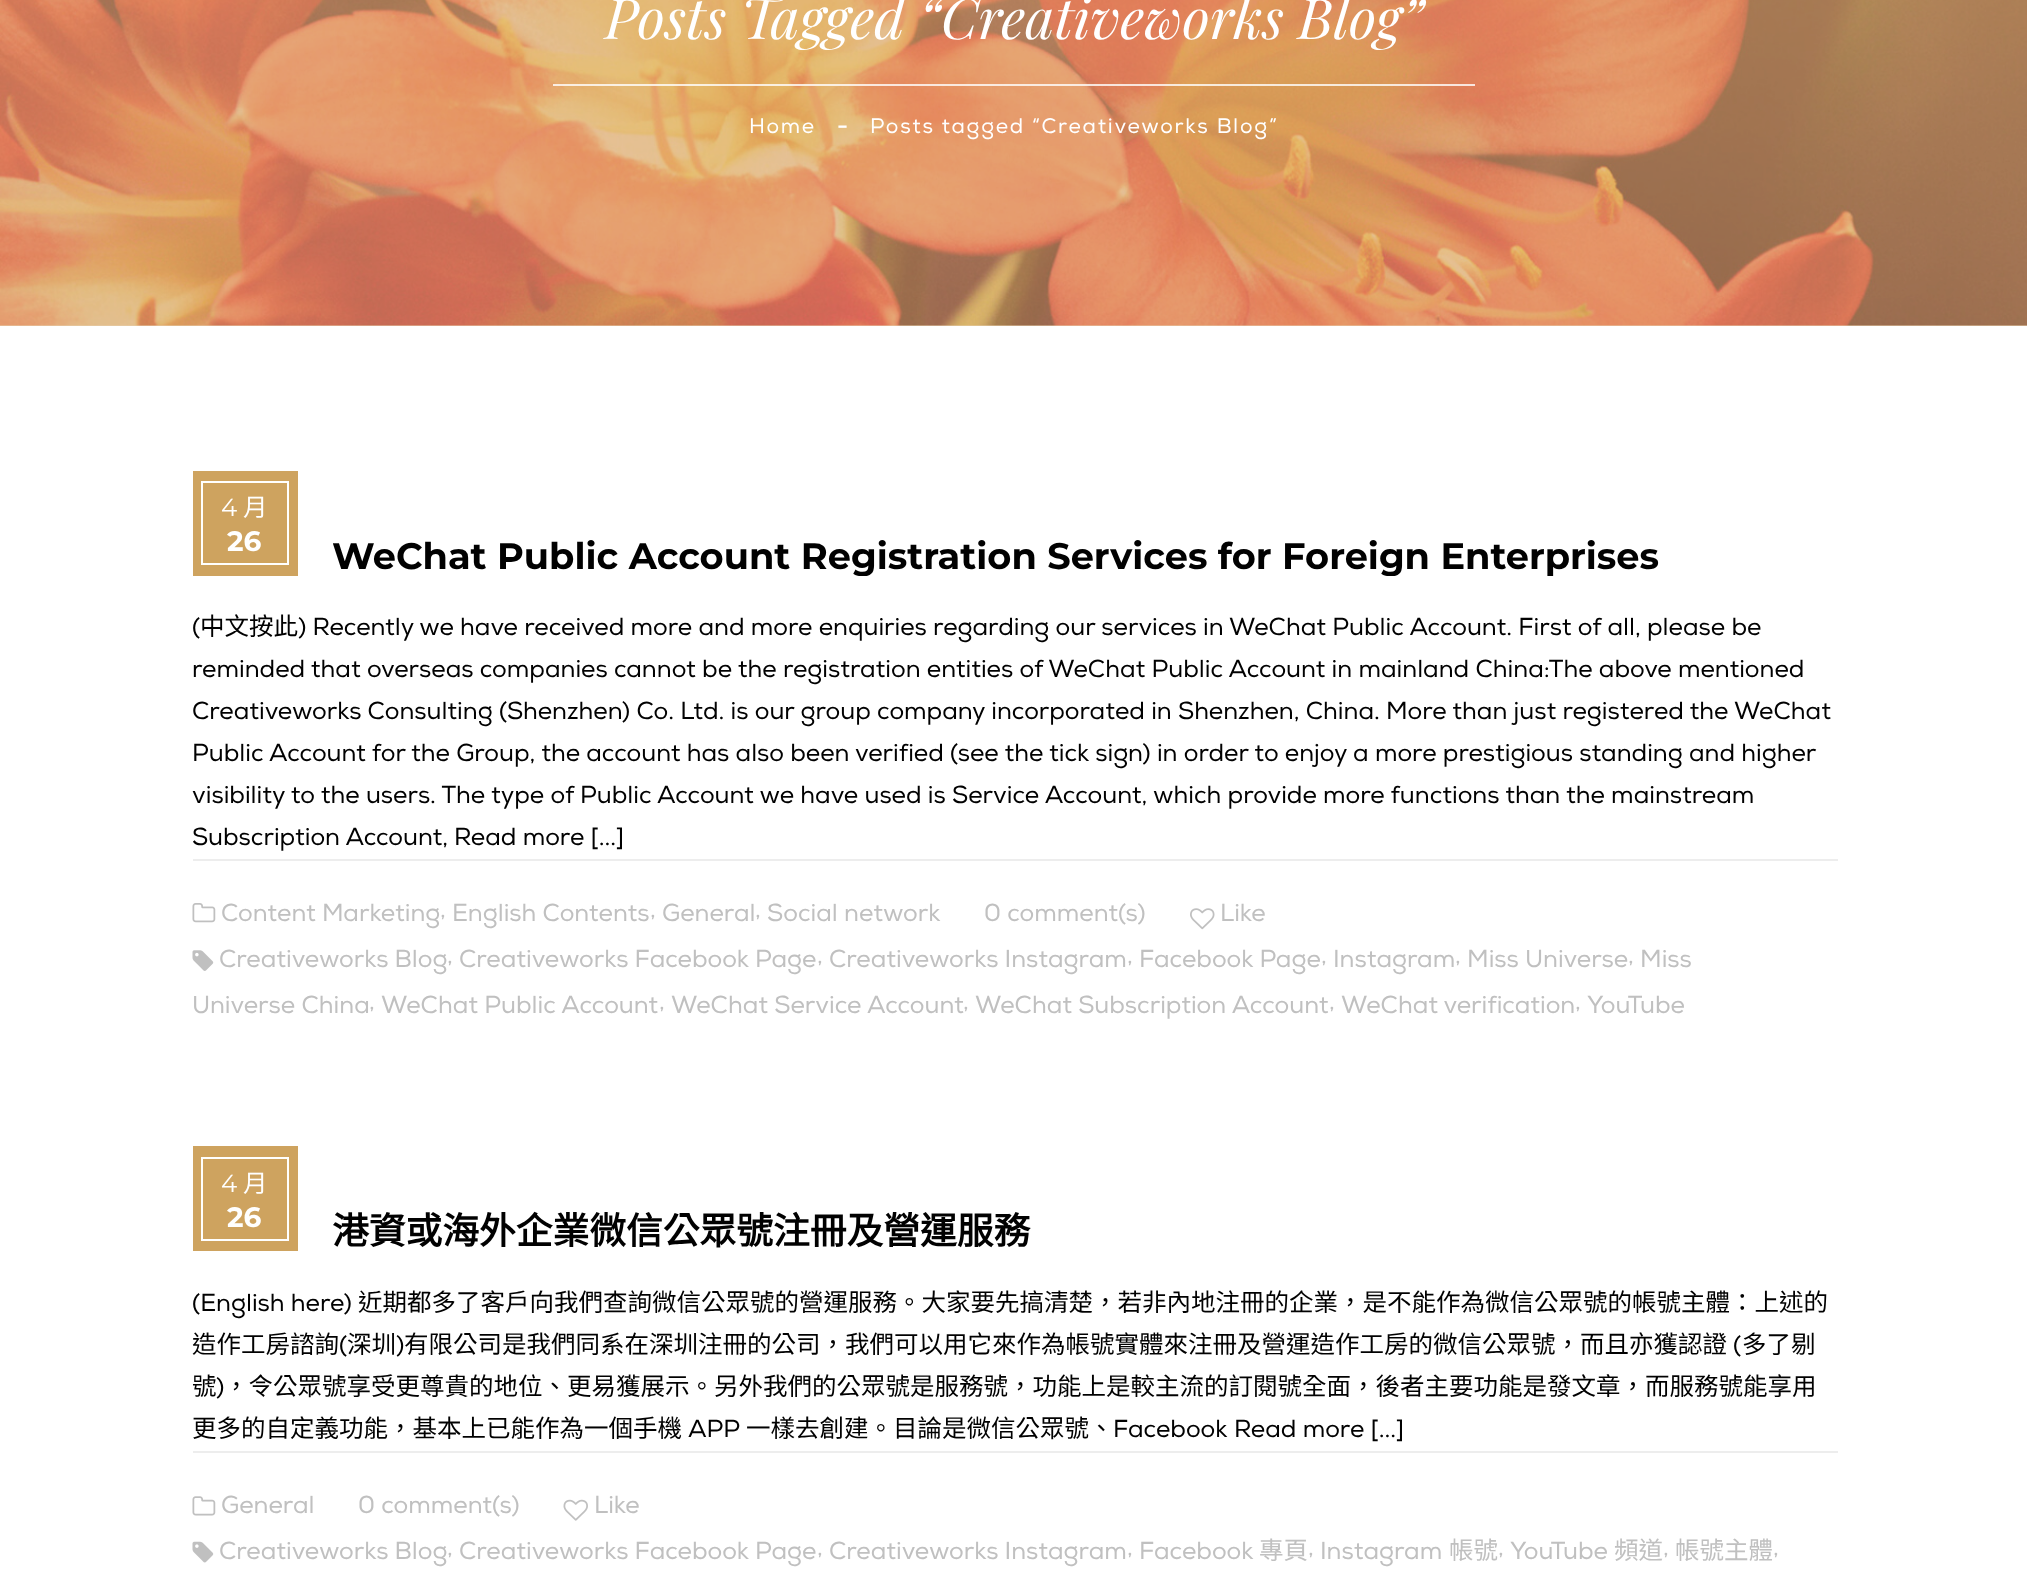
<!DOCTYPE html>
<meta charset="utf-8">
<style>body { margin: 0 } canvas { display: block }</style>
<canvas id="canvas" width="2027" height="1589"></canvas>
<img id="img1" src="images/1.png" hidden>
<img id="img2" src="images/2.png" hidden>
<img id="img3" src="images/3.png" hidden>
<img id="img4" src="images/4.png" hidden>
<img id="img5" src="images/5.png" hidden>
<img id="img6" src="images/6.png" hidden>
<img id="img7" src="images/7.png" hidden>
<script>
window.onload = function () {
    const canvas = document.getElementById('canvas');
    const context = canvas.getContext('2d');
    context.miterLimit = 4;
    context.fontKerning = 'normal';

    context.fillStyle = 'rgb(255, 255, 255)';
    context.fillRect(0, 0, 2027, 1589);
    context.fillStyle = 'rgb(231, 209, 175)';
    context.fillRect(0, 325, 2027, 1);
    context.drawImage(document.getElementById('img1'), 0, 0, 2027, 326);
    context.fillStyle = 'rgba(255, 255, 255, 0.8)';
    context.fillRect(553, 84, 922, 2);
    context.fillStyle = 'rgb(206, 163, 95)';
    context.fillRect(193, 471, 105, 105);
    context.strokeStyle = 'rgb(255, 255, 255)';
    context.lineWidth = 2;
    context.strokeRect(202, 482, 86, 82);
    context.fillStyle = 'rgb(237, 237, 237)';
    context.fillRect(193, 859, 1645, 2);
    context.drawImage(document.getElementById('img2'), 192, 903, 24, 20);
    context.drawImage(document.getElementById('img3'), 1190, 908, 25, 22);
    context.drawImage(document.getElementById('img4'), 192, 950, 22, 21);
    context.fillStyle = 'rgb(206, 163, 95)';
    context.fillRect(193, 1146, 105, 105);
    context.strokeRect(202, 1158, 86, 82);
    context.fillStyle = 'rgb(237, 237, 237)';
    context.fillRect(193, 1451, 1645, 2);
    context.drawImage(document.getElementById('img5'), 192, 1496, 24, 20);
    context.drawImage(document.getElementById('img6'), 563, 1499, 25, 22);
    context.drawImage(document.getElementById('img7'), 192, 1541, 22, 22);
    context.font = 'italic 56px Playfair Display';
    context.fillStyle = 'rgb(255, 255, 255)';
    context.fillText('Posts Tagged “Creativeworks Blog”', 605, 39);
    context.letterSpacing = '1.75px';
    context.font = '21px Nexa';
    context.fillText('Home', 749, 133);
    context.font = 'bold 21px Nexa';
    context.fillText('-', 837, 133);
    context.font = '21px Nexa';
    context.fillText('Posts tagged “Creativeworks Blog”', 870, 133);
    context.letterSpacing = '0px';
    context.font = '100 24.5px Montserrat';
    context.fillText('4', 221, 516);
    context.font = '24.5px Noto Sans CJK TC';
    context.fillText('月', 243, 516);
    context.font = 'bold 28px Montserrat';
    context.fillText('26', 227, 551);
    context.save();
    context.beginPath();
    context.rect(333, 536, 1326, 40);
    context.clip();
    context.font = 'bold 36.75px Montserrat';
    context.fillStyle = 'rgb(1, 1, 1)';
    context.fillText('WeChat Public Account Registration Services for Foreign Enterprises', 332, 569);
    context.restore();
    context.font = '24.5px Nexa';
    context.fillStyle = 'rgb(1, 1, 1)';
    context.fillText('(', 192, 635);
    context.font = '24.5px Noto Sans TC';
    context.fillText('中文按此', 200, 635);
    context.font = '24.5px Nexa';
    context.fillText(') Recently we have received more and more enquiries regarding our services in WeChat Public Account. First of all, please be', 298, 635);
    context.fillText('reminded that overseas companies cannot be the registration entities of WeChat Public Account in mainland China:The above mentioned', 192, 677);
    context.fillText('Creativeworks Consulting (Shenzhen) Co. Ltd. is our group company incorporated in Shenzhen, China. More than just registered the WeChat', 192, 719);
    context.fillText('Public Account for the Group, the account has also been verified (see the tick sign) in order to enjoy a more prestigious standing and higher', 192, 761);
    context.fillText('visibility to the users. The type of Public Account we have used is Service Account, which provide more functions than the mainstream', 192, 803);
    context.fillText('Subscription Account,', 192, 845);
    context.fillText('Read more [...]', 454, 845);
    context.fillStyle = 'rgb(192, 192, 192)';
    context.fillText('Content Marketing', 221, 921);
    context.fillText(',', 440, 917);
    context.fillText('English Contents', 452, 921);
    context.fillText(',', 650, 917);
    context.fillText('General', 662, 921);
    context.fillText(',', 755, 917);
    context.fillText('Social network', 767, 921);
    context.fillText('0 comment(s)', 984, 921);
    context.fillText('Like', 1220, 921);
    context.fillText('Creativeworks Blog', 219, 967);
    context.fillText(',', 447, 963);
    context.fillText('Creativeworks Facebook Page', 459, 967);
    context.fillText(',', 817, 963);
    context.fillText('Creativeworks Instagram', 829, 967);
    context.fillText(',', 1127, 963);
    context.fillText('Facebook Page', 1139, 967);
    context.fillText(',', 1321, 963);
    context.fillText('Instagram', 1333, 967);
    context.fillText(',', 1455, 963);
    context.fillText('Miss Universe', 1467, 967);
    context.fillText(',', 1628, 963);
    context.fillText('Miss', 1640, 967);
    context.fillText('Universe China', 192, 1013);
    context.fillText(',', 369, 1009);
    context.fillText('WeChat Public Account', 381, 1013);
    context.fillText(',', 659, 1009);
    context.fillText('WeChat Service Account', 671, 1013);
    context.fillText(',', 963, 1009);
    context.fillText('WeChat Subscription Account', 975, 1013);
    context.fillText(',', 1329, 1009);
    context.fillText('WeChat verification', 1341, 1013);
    context.fillText(',', 1575, 1009);
    context.fillText('YouTube', 1587, 1013);
    context.font = '100 24.5px Montserrat';
    context.fillStyle = 'rgb(255, 255, 255)';
    context.fillText('4', 221, 1192);
    context.font = '24.5px Noto Sans CJK TC';
    context.fillText('月', 243, 1192);
    context.font = 'bold 28px Montserrat';
    context.fillText('26', 227, 1227);
    context.font = 'bold 36.75px Noto Sans CJK TC';
    context.fillStyle = 'rgb(1, 1, 1)';
    context.fillText('港資或海外企業微信公眾號注冊及營運服務', 332, 1244);
    context.font = '24.5px Nexa';
    context.fillText('(English here)', 192, 1311);
    context.font = '24.5px Noto Sans TC';
    context.fillText('近期都多了客戶向我們查詢微信公眾號的營運服務。大家要先搞清楚，若非內地注冊的企業，是不能作為微信公眾號的帳號主體：上述的', 358, 1311);
    context.fillText('造作工房諮詢', 192, 1353);
    context.font = '24.5px Nexa';
    context.fillText('(', 339, 1353);
    context.font = '24.5px Noto Sans TC';
    context.fillText('深圳', 347, 1353);
    context.font = '24.5px Nexa';
    context.fillText(')', 396, 1353);
    context.font = '24.5px Noto Sans TC';
    context.fillText('有限公司是我們同系在深圳注冊的公司，我們可以用它來作為帳號實體來注冊及營運造作工房的微信公眾號，而且亦獲認證', 404, 1353);
    context.font = '24.5px Nexa';
    context.fillText('(', 1733, 1353);
    context.font = '24.5px Noto Sans TC';
    context.fillText('多了剔', 1742, 1353);
    context.fillText('號', 192, 1395);
    context.font = '24.5px Nexa';
    context.fillText(')', 216, 1395);
    context.font = '24.5px Noto Sans TC';
    context.fillText('，令公眾號享受更尊貴的地位、更易獲展示。另外我們的公眾號是服務號，功能上是較主流的訂閱號全面，後者主要功能是發文章，而服務號能享用', 224, 1395);
    context.fillText('更多的自定義功能，基本上已能作為一個手機', 192, 1437);
    context.font = '24.5px Nexa';
    context.fillText('APP', 688, 1437);
    context.font = '24.5px Noto Sans TC';
    context.fillText('一樣去創建。目論是微信公眾號、', 746, 1437);
    context.font = '24.5px Nexa';
    context.fillText('Facebook', 1113, 1437);
    context.fillText('Read more [...]', 1234, 1437);
    context.fillStyle = 'rgb(192, 192, 192)';
    context.fillText('General', 221, 1513);
    context.fillText('0 comment(s)', 358, 1513);
    context.fillText('Like', 594, 1513);
    context.fillText('Creativeworks Blog', 219, 1559);
    context.fillText(',', 447, 1555);
    context.fillText('Creativeworks Facebook Page', 459, 1559);
    context.fillText(',', 817, 1555);
    context.fillText('Creativeworks Instagram', 829, 1559);
    context.fillText(',', 1127, 1555);
    context.fillText('Facebook', 1139, 1559);
    context.font = '24.5px Noto Sans TC';
    context.fillText('專頁', 1259, 1559);
    context.font = '24.5px Nexa';
    context.fillText(',', 1308, 1555);
    context.fillText('Instagram', 1320, 1559);
    context.font = '24.5px Noto Sans TC';
    context.fillText('帳號', 1449, 1559);
    context.font = '24.5px Nexa';
    context.fillText(',', 1498, 1555);
    context.fillText('YouTube', 1510, 1559);
    context.font = '24.5px Noto Sans TC';
    context.fillText('頻道', 1614, 1559);
    context.font = '24.5px Nexa';
    context.fillText(',', 1663, 1555);
    context.font = '24.5px Noto Sans TC';
    context.fillText('帳號主體', 1675, 1559);
    context.font = '24.5px Nexa';
    context.fillText(',', 1773, 1555);
};
</script>
